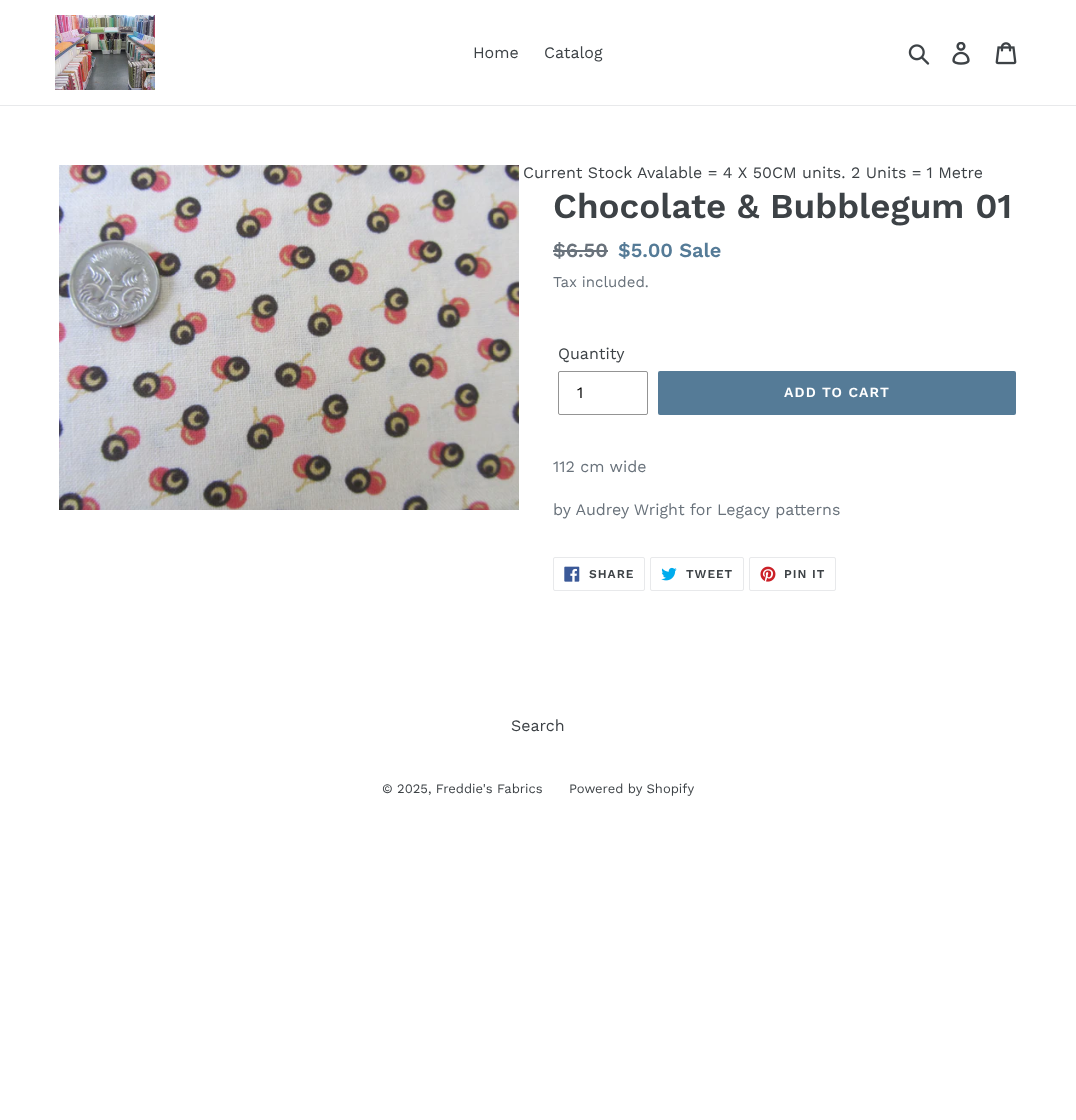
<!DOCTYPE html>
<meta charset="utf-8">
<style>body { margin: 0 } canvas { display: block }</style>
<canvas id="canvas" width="1076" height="1120"></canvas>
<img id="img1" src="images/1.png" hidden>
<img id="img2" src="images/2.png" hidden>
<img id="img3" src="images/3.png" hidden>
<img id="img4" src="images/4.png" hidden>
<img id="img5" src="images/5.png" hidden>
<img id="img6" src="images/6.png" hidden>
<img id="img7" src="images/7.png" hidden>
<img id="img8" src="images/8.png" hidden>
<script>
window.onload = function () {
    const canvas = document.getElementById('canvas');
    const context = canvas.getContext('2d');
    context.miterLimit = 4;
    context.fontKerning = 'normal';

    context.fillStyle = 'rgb(255, 255, 255)';
    context.fillRect(0, 0, 1076, 1120);
    context.fillStyle = 'rgb(232, 233, 235)';
    context.fillRect(0, 105, 1076, 1);
    context.drawImage(document.getElementById('img1'), 55, 15, 100, 75);
    context.drawImage(document.getElementById('img2'), 908, 44, 22, 21);
    context.drawImage(document.getElementById('img3'), 952, 42, 18, 23);
    context.drawImage(document.getElementById('img4'), 995, 42, 22, 23);
    context.drawImage(document.getElementById('img5'), 59, 165, 460, 345);
    context.fillStyle = 'rgb(105, 114, 123)';
    context.fillRect(553, 250, 55, 2);
    context.beginPath();
    context.roundRect(558.5, 371.5, 89, 43, 1.5);
    context.strokeStyle = 'rgb(148, 148, 148)';
    context.stroke();
    context.fillStyle = 'rgb(85, 123, 151)';
    context.beginPath();
    context.roundRect(658, 371, 358, 44, 2);
    context.fill();
    context.beginPath();
    context.roundRect(553.5, 557.5, 91, 33, 1.5);
    context.strokeStyle = 'rgb(232, 233, 235)';
    context.stroke();
    context.drawImage(document.getElementById('img6'), 564, 566, 16, 16);
    context.beginPath();
    context.roundRect(650.5, 557.5, 93, 33, 1.5);
    context.stroke();
    context.drawImage(document.getElementById('img7'), 661, 567, 16, 14);
    context.beginPath();
    context.roundRect(749.5, 557.5, 86, 33, 1.5);
    context.stroke();
    context.drawImage(document.getElementById('img8'), 760, 566, 16, 16);
    context.font = '16px Work Sans';
    context.fillStyle = 'rgb(61, 66, 70)';
    context.fillText('Home', 473, 58);
    context.fillText('Catalog', 544, 58);
    context.fillText('Current Stock Avalable = 4 X 50CM units. 2 Units = 1 Metre', 523, 178);
    context.font = '600 35px Work Sans';
    context.fillText('Chocolate & Bubblegum 01', 553, 218);
    context.font = '600 20px Work Sans';
    context.fillStyle = 'rgb(105, 114, 123)';
    context.fillText('$6.50', 553, 257);
    context.fillStyle = 'rgb(85, 123, 151)';
    context.fillText('$5.00 Sale', 618, 257);
    context.font = '15px Work Sans';
    context.fillStyle = 'rgb(105, 114, 123)';
    context.fillText('Tax included.', 553, 287);
    context.font = '16px Work Sans';
    context.fillStyle = 'rgb(61, 66, 70)';
    context.fillText('Quantity', 558, 359);
    context.fillStyle = 'rgb(0, 0, 0)';
    context.fillText('1', 577, 398);
    context.letterSpacing = '1.1px';
    context.font = '600 14px Work Sans';
    context.fillStyle = 'rgb(255, 255, 255)';
    context.fillText('ADD TO CART', 784, 397);
    context.letterSpacing = '0px';
    context.font = '16px Work Sans';
    context.fillStyle = 'rgb(105, 114, 123)';
    context.fillText('112 cm wide', 553, 472);
    context.fillText('by Audrey Wright for Legacy patterns', 553, 515);
    context.letterSpacing = '1px';
    context.font = '600 12px Work Sans';
    context.fillStyle = 'rgb(61, 66, 70)';
    context.fillText('SHARE', 589, 578);
    context.fillText('TWEET', 686, 578);
    context.fillText('PIN IT', 784, 578);
    context.letterSpacing = '0px';
    context.font = '16px Work Sans';
    context.fillText('Search', 511, 731);
    context.font = '13px Work Sans';
    context.fillText('© 2025, Freddie\'s Fabrics', 382, 793);
    context.fillText('Powered by Shopify', 569, 793);
};
</script>
